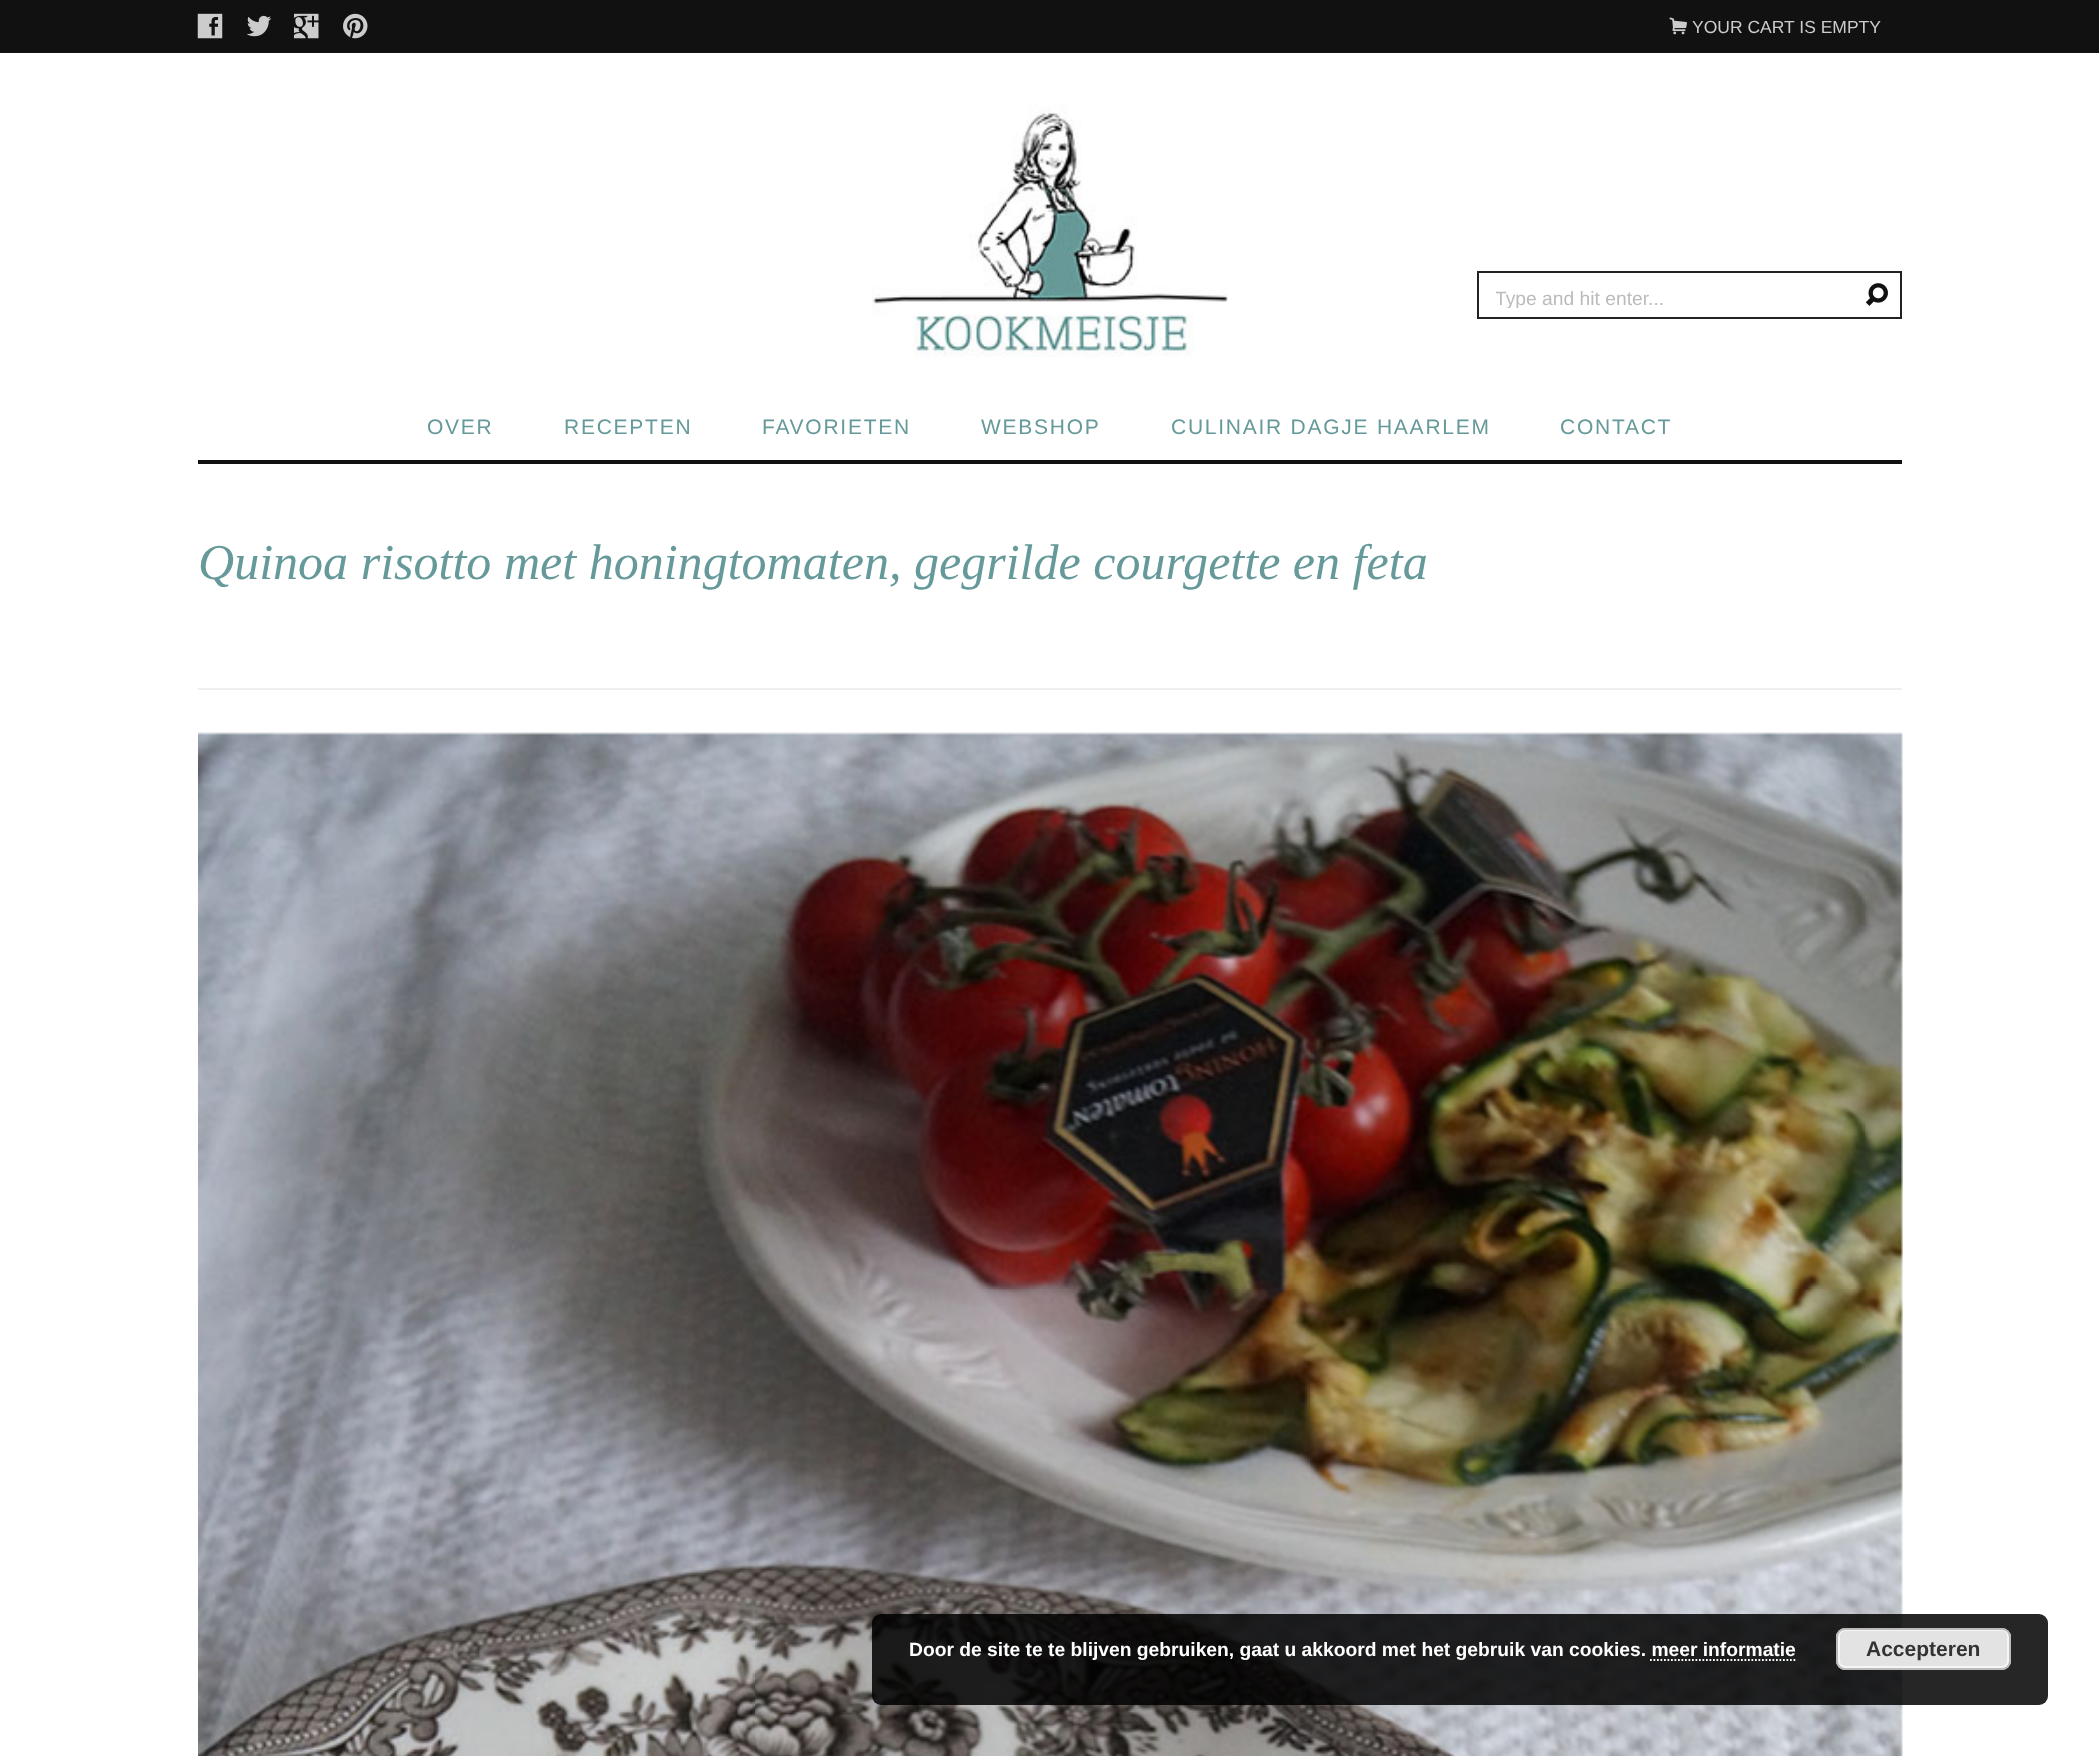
<!DOCTYPE html>
<meta charset="utf-8">
<style>body { margin: 0 } canvas { display: block }</style>
<canvas id="canvas" width="2099" height="1756"></canvas>
<img id="img1" src="images/1.png" hidden>
<img id="img2" src="images/2.png" hidden>
<img id="img3" src="images/3.png" hidden>
<img id="img4" src="images/4.png" hidden>
<img id="img5" src="images/5.png" hidden>
<img id="img6" src="images/6.png" hidden>
<img id="img7" src="images/7.png" hidden>
<img id="img8" src="images/8.png" hidden>
<script>
window.onload = function () {
    const canvas = document.getElementById('canvas');
    const context = canvas.getContext('2d');
    context.miterLimit = 4;
    context.fontKerning = 'normal';

    context.fillStyle = 'rgb(255, 255, 255)';
    context.fillRect(0, 0, 2099, 1756);
    context.fillStyle = 'rgb(17, 17, 17)';
    context.fillRect(0, 0, 2099, 53);
    context.drawImage(document.getElementById('img1'), 197, 13, 26, 26);
    context.drawImage(document.getElementById('img2'), 247, 15, 25, 22);
    context.drawImage(document.getElementById('img3'), 293, 13, 26, 26);
    context.drawImage(document.getElementById('img4'), 343, 13, 25, 26);
    context.drawImage(document.getElementById('img5'), 1669, 17, 18, 18);
    context.drawImage(document.getElementById('img6'), 872, 105, 356, 252);
    context.strokeStyle = 'rgb(34, 34, 34)';
    context.lineWidth = 2;
    context.strokeRect(1478, 272, 423, 46);
    context.drawImage(document.getElementById('img7'), 1865, 283, 23, 23);
    context.fillRect(198, 460, 1704, 4);
    context.fillStyle = 'rgb(238, 238, 238)';
    context.fillRect(198, 688, 1704, 2);
    context.drawImage(document.getElementById('img8'), 198, 732, 1705, 1024);
    context.fillStyle = 'rgba(0, 0, 0, 0.85)';
    context.beginPath();
    context.roundRect(872, 1614, 1176, 91, 9);
    context.fill();
    context.fillStyle = 'rgb(227, 227, 227)';
    context.beginPath();
    context.roundRect(1836, 1628, 175, 42, 9);
    context.fill();
    context.beginPath();
    context.roundRect(1839, 1630, 169, 37, 6);
    context.strokeStyle = 'rgb(246, 246, 246)';
    context.stroke();
    context.beginPath();
    context.roundRect(1837, 1629, 173, 40, 8);
    context.strokeStyle = 'rgb(187, 187, 187)';
    context.stroke();
    context.beginPath();
    context.moveTo(1650, 1660);
    context.lineTo(1795.5, 1660);
    context.strokeStyle = 'rgb(255, 255, 255)';
    context.lineWidth = 1.8;
    context.setLineDash([1.75, 1.75]);
    context.stroke();
    context.font = '17.5px Liberation Sans';
    context.fillStyle = 'rgb(204, 204, 204)';
    context.fillText('YOUR CART IS EMPTY', 1692, 33);
    context.save();
    context.beginPath();
    context.rect(1496, 287, 387, 21);
    context.clip();
    context.font = '19.25px Liberation Sans';
    context.fillStyle = 'rgb(187, 187, 187)';
    context.fillText('Type and hit enter...', 1495, 305);
    context.restore();
    context.letterSpacing = '1.75px';
    context.font = '21px Liberation Sans';
    context.fillStyle = 'rgb(102, 153, 153)';
    context.fillText('OVER', 427, 434);
    context.fillText('RECEPTEN', 564, 434);
    context.fillText('FAVORIETEN', 762, 434);
    context.fillText('WEBSHOP', 981, 434);
    context.fillText('CULINAIR DAGJE HAARLEM', 1171, 434);
    context.fillText('CONTACT', 1560, 434);
    context.letterSpacing = '0px';
    context.font = 'italic 50.05px Liberation Serif';
    context.fillText('Quinoa risotto met honingtomaten, gegrilde courgette en feta', 198, 579);
    context.font = 'bold 19.25px Liberation Sans';
    context.fillStyle = 'rgb(255, 255, 255)';
    context.fillText('Door de site te te blijven gebruiken, gaat u akkoord met het gebruik van cookies. meer informatie', 909, 1656);
    context.font = 'bold 21px Liberation Sans';
    context.fillStyle = 'rgb(51, 51, 51)';
    context.fillText('Accepteren', 1866, 1656);
};
</script>
